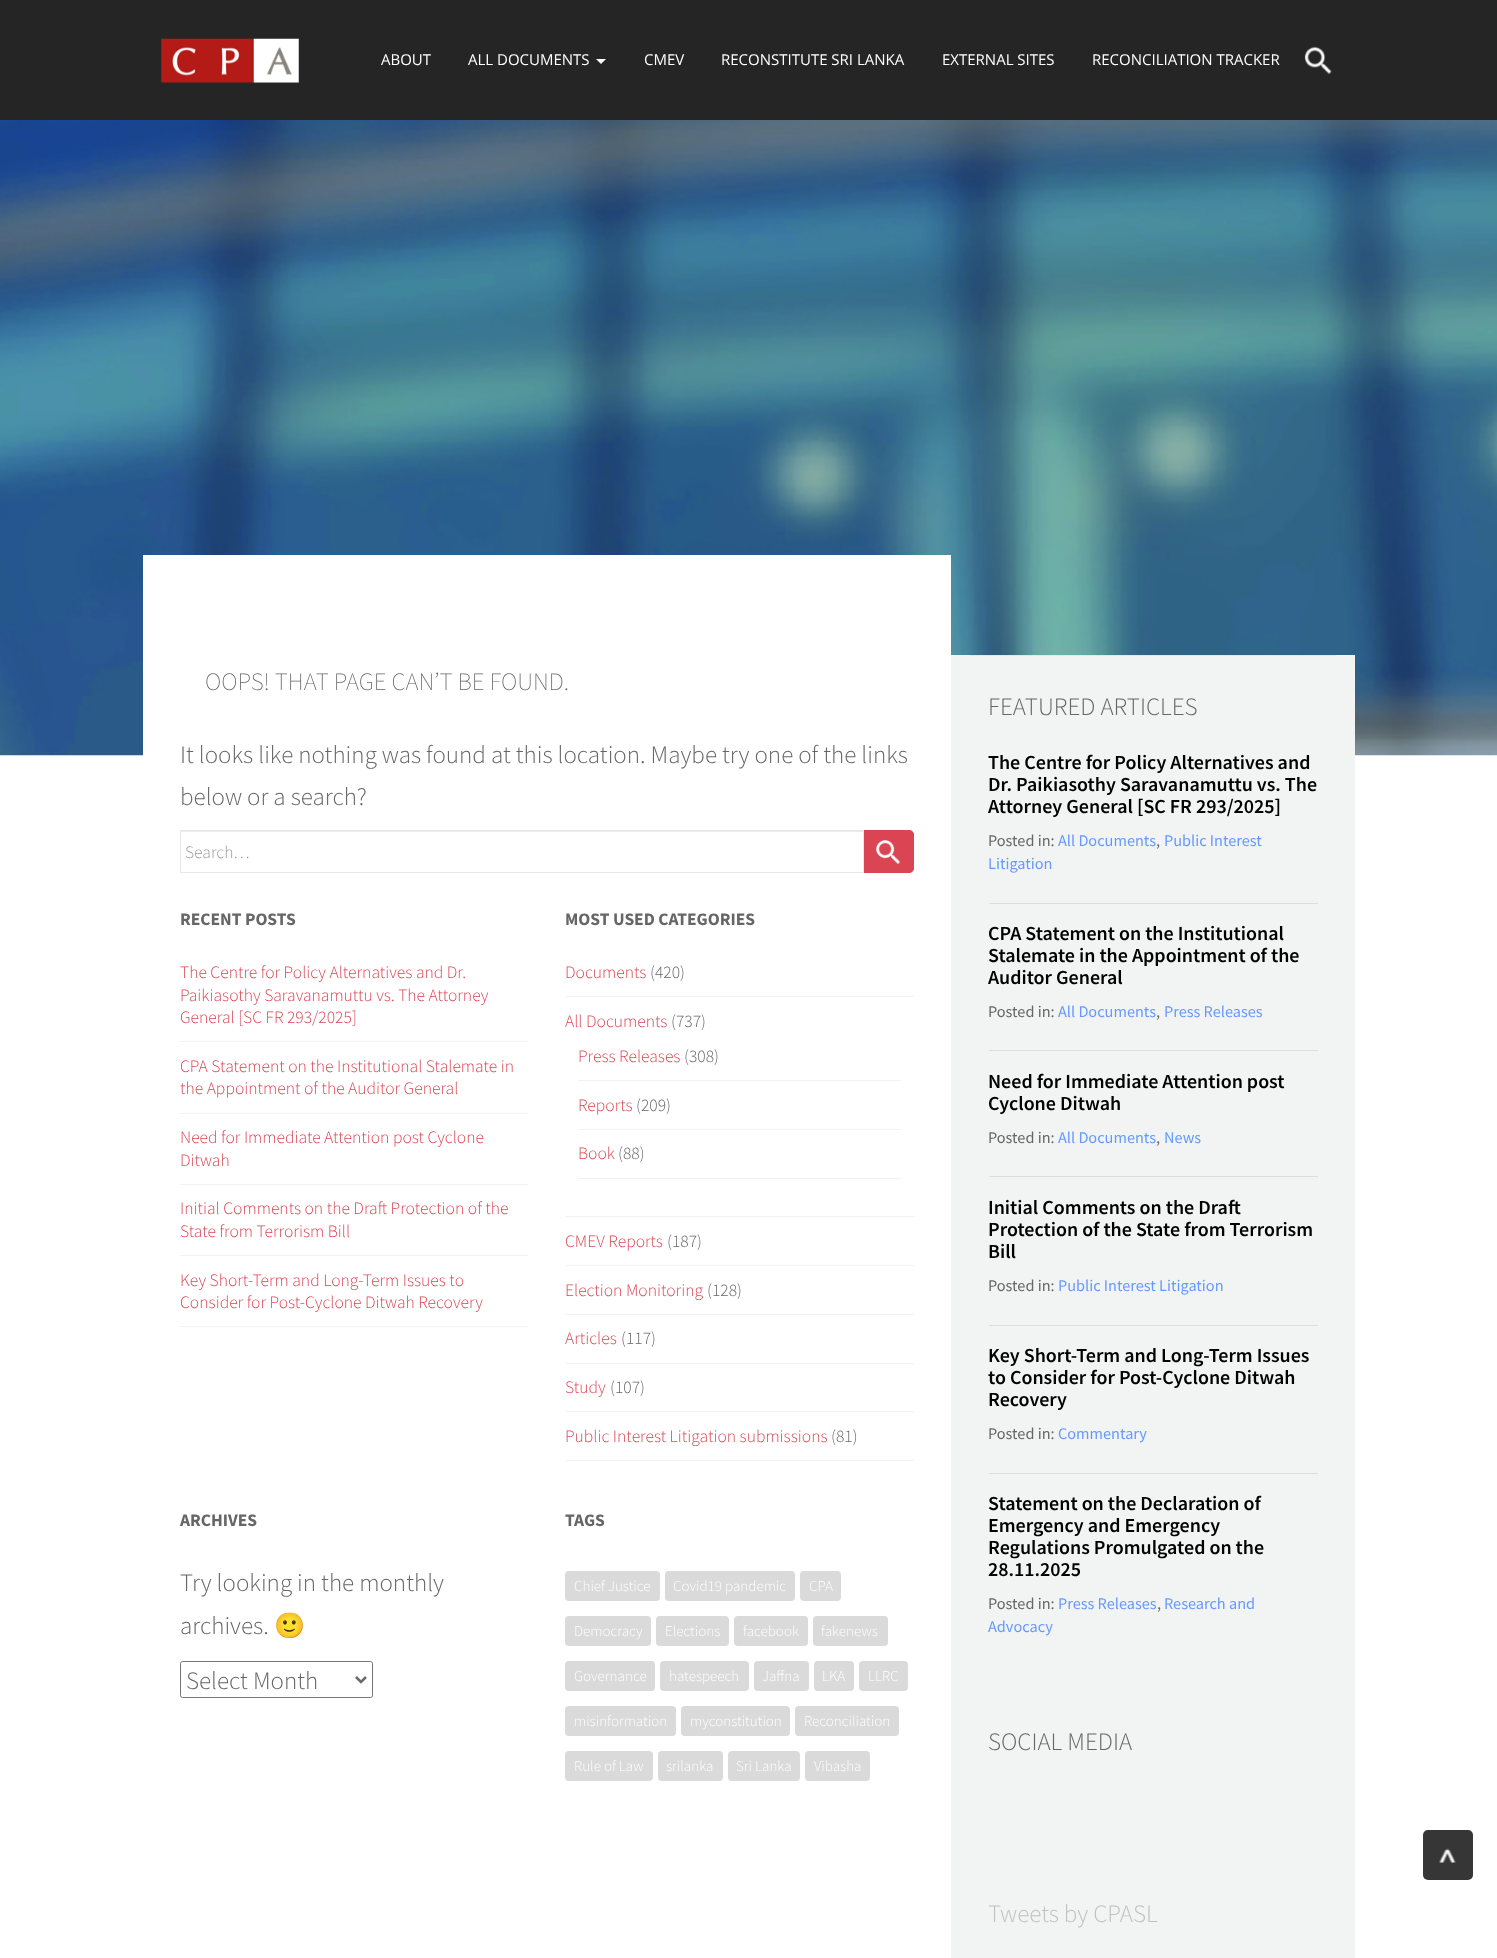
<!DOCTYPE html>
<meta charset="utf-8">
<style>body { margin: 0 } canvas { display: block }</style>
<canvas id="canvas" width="1497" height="1958"></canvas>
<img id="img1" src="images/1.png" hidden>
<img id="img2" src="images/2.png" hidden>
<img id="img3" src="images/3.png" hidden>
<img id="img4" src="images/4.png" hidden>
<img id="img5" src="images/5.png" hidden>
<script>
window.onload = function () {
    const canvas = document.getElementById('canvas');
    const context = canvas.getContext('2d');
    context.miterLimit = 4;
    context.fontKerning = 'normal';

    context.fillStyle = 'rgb(255, 255, 255)';
    context.fillRect(0, 0, 1497, 1958);
    context.fillStyle = 'rgb(37, 37, 37)';
    context.fillRect(0, 0, 1497, 120);
    context.drawImage(document.getElementById('img1'), 161, 38, 138, 45);
    context.fillStyle = 'rgb(255, 255, 255)';
    context.beginPath();
    context.moveTo(596, 59);
    context.lineTo(606, 59);
    context.lineTo(601, 64);
    context.closePath();
    context.fill();
    context.drawImage(document.getElementById('img2'), 1304, 47, 28, 28);
    context.drawImage(document.getElementById('img3'), 0, 120, 1497, 636);
    context.fillRect(143, 555, 808, 201);
    context.fillStyle = 'rgb(236, 236, 236)';
    context.fillRect(181, 831, 682, 1);
    context.strokeStyle = 'rgb(232, 232, 232)';
    context.strokeRect(180.5, 830.5, 683, 42);
    context.fillStyle = 'rgb(218, 68, 83)';
    context.beginPath();
    context.roundRect(864, 830, 50, 43, [0, 5, 5, 0]);
    context.fill();
    context.drawImage(document.getElementById('img4'), 876, 840, 24, 24);
    context.beginPath();
    context.roundRect(864.5, 830.5, 49, 42, [0, 4.5, 4.5, 0]);
    context.strokeStyle = 'rgb(218, 68, 83)';
    context.stroke();
    context.fillStyle = 'rgb(242, 242, 242)';
    context.fillRect(180, 1041, 348, 1);
    context.fillRect(180, 1113, 348, 1);
    context.fillRect(180, 1184, 348, 1);
    context.fillRect(180, 1255, 348, 1);
    context.fillRect(180, 1326, 348, 1);
    context.fillRect(565, 996, 349, 1);
    context.fillRect(565, 1216, 349, 1);
    context.fillRect(578, 1080, 323, 1);
    context.fillRect(578, 1129, 323, 1);
    context.fillRect(578, 1178, 323, 1);
    context.fillRect(565, 1265, 349, 1);
    context.fillRect(565, 1314, 349, 1);
    context.fillRect(565, 1363, 349, 1);
    context.fillRect(565, 1411, 349, 1);
    context.fillRect(565, 1460, 349, 1);
    context.beginPath();
    context.roundRect(180.5, 1661.5, 192, 36, 2);
    context.strokeStyle = 'rgb(118, 118, 118)';
    context.stroke();
    context.beginPath();
    context.moveTo(356, 1677);
    context.lineTo(361, 1682);
    context.lineTo(366, 1677);
    context.strokeStyle = 'rgb(107, 107, 107)';
    context.lineWidth = 2.5;
    context.stroke();
    context.fillStyle = 'rgb(218, 218, 218)';
    context.beginPath();
    context.roundRect(565, 1571, 95, 30, 4);
    context.fill();
    context.beginPath();
    context.roundRect(665, 1571, 130, 30, 4);
    context.fill();
    context.beginPath();
    context.roundRect(800, 1571, 41, 30, 4);
    context.fill();
    context.beginPath();
    context.roundRect(565, 1616, 86, 30, 4);
    context.fill();
    context.beginPath();
    context.roundRect(656, 1616, 73, 30, 4);
    context.fill();
    context.beginPath();
    context.roundRect(734, 1616, 74, 30, 4);
    context.fill();
    context.beginPath();
    context.roundRect(813, 1616, 75, 30, 4);
    context.fill();
    context.beginPath();
    context.roundRect(565, 1661, 90, 30, 4);
    context.fill();
    context.beginPath();
    context.roundRect(660, 1661, 89, 30, 4);
    context.fill();
    context.beginPath();
    context.roundRect(754, 1661, 55, 30, 4);
    context.fill();
    context.beginPath();
    context.roundRect(814, 1661, 40, 30, 4);
    context.fill();
    context.beginPath();
    context.roundRect(859, 1661, 49, 30, 4);
    context.fill();
    context.beginPath();
    context.roundRect(565, 1706, 111, 30, 4);
    context.fill();
    context.beginPath();
    context.roundRect(681, 1706, 109, 30, 4);
    context.fill();
    context.beginPath();
    context.roundRect(795, 1706, 104, 30, 4);
    context.fill();
    context.beginPath();
    context.roundRect(565, 1751, 88, 30, 4);
    context.fill();
    context.beginPath();
    context.roundRect(658, 1751, 65, 30, 4);
    context.fill();
    context.beginPath();
    context.roundRect(728, 1751, 72, 30, 4);
    context.fill();
    context.beginPath();
    context.roundRect(805, 1751, 65, 30, 4);
    context.fill();
    context.fillStyle = 'rgb(242, 244, 243)';
    context.fillRect(951, 655, 404, 1303);
    context.fillStyle = 'rgb(230, 232, 231)';
    context.fillRect(970, 655, 366, 1);
    context.fillStyle = 'rgb(221, 221, 221)';
    context.fillRect(989, 903, 329, 1);
    context.fillRect(989, 1050, 329, 1);
    context.fillRect(989, 1176, 329, 1);
    context.fillRect(989, 1325, 329, 1);
    context.fillRect(989, 1473, 329, 1);
    context.fillStyle = 'rgb(54, 54, 54)';
    context.beginPath();
    context.roundRect(1423, 1830, 50, 50, 5);
    context.fill();
    context.drawImage(document.getElementById('img5'), 1439, 1848, 17, 15);
    context.font = '15px Open Sans';
    context.fillStyle = 'rgb(255, 255, 255)';
    context.fillText('ABOUT', 381, 65);
    context.fillText('ALL DOCUMENTS', 468, 65);
    context.fillText('CMEV', 644, 65);
    context.fillText('RECONSTITUTE SRI LANKA', 721, 65);
    context.fillText('EXTERNAL SITES', 942, 65);
    context.fillText('RECONCILIATION TRACKER', 1092, 65);
    context.font = '200 25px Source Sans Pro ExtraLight';
    context.fillStyle = 'rgb(102, 102, 102)';
    context.fillText('OOPS! THAT PAGE CAN’T BE FOUND.', 205, 690);
    context.font = '300 25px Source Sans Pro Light';
    context.fillText('It looks like nothing was found at this location. Maybe try one of the links', 180, 763);
    context.fillText('below or a search?', 180, 805);
    context.font = '300 17.5px Source Sans Pro Light';
    context.fillStyle = 'rgb(153, 153, 153)';
    context.fillText('Search…', 185, 858);
    context.font = 'bold 17.5px Source Sans Pro';
    context.fillStyle = 'rgb(102, 102, 102)';
    context.fillText('RECENT POSTS', 180, 925);
    context.font = '300 17.5px Source Sans Pro Light';
    context.fillStyle = 'rgb(218, 68, 83)';
    context.fillText('The Centre for Policy Alternatives and Dr.', 180, 978);
    context.fillText('Paikiasothy Saravanamuttu vs. The Attorney', 180, 1001);
    context.fillText('General [SC FR 293/2025]', 180, 1023);
    context.fillText('CPA Statement on the Institutional Stalemate in', 180, 1072);
    context.fillText('the Appointment of the Auditor General', 180, 1094);
    context.fillText('Need for Immediate Attention post Cyclone', 180, 1143);
    context.fillText('Ditwah', 180, 1166);
    context.fillText('Initial Comments on the Draft Protection of the', 180, 1214);
    context.fillText('State from Terrorism Bill', 180, 1237);
    context.fillText('Key Short-Term and Long-Term Issues to', 180, 1286);
    context.fillText('Consider for Post-Cyclone Ditwah Recovery', 180, 1308);
    context.font = 'bold 17.5px Source Sans Pro';
    context.fillStyle = 'rgb(102, 102, 102)';
    context.fillText('MOST USED CATEGORIES', 565, 925);
    context.font = '300 17.5px Source Sans Pro Light';
    context.fillStyle = 'rgb(218, 68, 83)';
    context.fillText('Documents', 565, 978);
    context.fillStyle = 'rgb(102, 102, 102)';
    context.fillText('(420)', 650, 978);
    context.fillStyle = 'rgb(218, 68, 83)';
    context.fillText('All Documents', 565, 1027);
    context.fillStyle = 'rgb(102, 102, 102)';
    context.fillText('(737)', 671, 1027);
    context.fillStyle = 'rgb(218, 68, 83)';
    context.fillText('Press Releases', 578, 1062);
    context.fillStyle = 'rgb(102, 102, 102)';
    context.fillText('(308)', 684, 1062);
    context.fillStyle = 'rgb(218, 68, 83)';
    context.fillText('Reports', 578, 1111);
    context.fillStyle = 'rgb(102, 102, 102)';
    context.fillText('(209)', 636, 1111);
    context.fillStyle = 'rgb(218, 68, 83)';
    context.fillText('Book', 578, 1159);
    context.fillStyle = 'rgb(102, 102, 102)';
    context.fillText('(88)', 618, 1159);
    context.fillStyle = 'rgb(218, 68, 83)';
    context.fillText('CMEV Reports', 565, 1247);
    context.fillStyle = 'rgb(102, 102, 102)';
    context.fillText('(187)', 667, 1247);
    context.fillStyle = 'rgb(218, 68, 83)';
    context.fillText('Election Monitoring', 565, 1296);
    context.fillStyle = 'rgb(102, 102, 102)';
    context.fillText('(128)', 707, 1296);
    context.fillStyle = 'rgb(218, 68, 83)';
    context.fillText('Articles', 565, 1344);
    context.fillStyle = 'rgb(102, 102, 102)';
    context.fillText('(117)', 621, 1344);
    context.fillStyle = 'rgb(218, 68, 83)';
    context.fillText('Study', 565, 1393);
    context.fillStyle = 'rgb(102, 102, 102)';
    context.fillText('(107)', 610, 1393);
    context.fillStyle = 'rgb(218, 68, 83)';
    context.fillText('Public Interest Litigation submissions', 565, 1442);
    context.fillStyle = 'rgb(102, 102, 102)';
    context.fillText('(81)', 831, 1442);
    context.font = 'bold 17.5px Source Sans Pro';
    context.fillText('ARCHIVES', 180, 1526);
    context.font = '300 25px Source Sans Pro Light';
    context.fillText('Try looking in the monthly', 180, 1591);
    context.fillText('archives.', 180, 1634);
    context.font = '25px Noto Color Emoji';
    context.fillText('🙂', 274, 1634);
    context.font = '300 25px Source Sans Pro Light';
    context.fillText('Select Month', 186, 1689);
    context.font = 'bold 17.5px Source Sans Pro';
    context.fillText('TAGS', 565, 1526);
    context.font = '300 15px Source Sans Pro Light';
    context.fillStyle = 'rgb(255, 255, 255)';
    context.fillText('Chief Justice', 574, 1591);
    context.fillText('Covid19 pandemic', 673, 1591);
    context.fillText('CPA', 809, 1591);
    context.fillText('Democracy', 574, 1636);
    context.fillText('Elections', 665, 1636);
    context.fillText('facebook', 743, 1636);
    context.fillText('fakenews', 821, 1636);
    context.fillText('Governance', 574, 1681);
    context.fillText('hatespeech', 669, 1681);
    context.fillText('Jaffna', 762, 1681);
    context.fillText('LKA', 822, 1681);
    context.fillText('LLRC', 868, 1681);
    context.fillText('misinformation', 574, 1726);
    context.fillText('myconstitution', 690, 1726);
    context.fillText('Reconciliation', 804, 1726);
    context.fillText('Rule of Law', 574, 1771);
    context.fillText('srilanka', 666, 1771);
    context.fillText('Sri Lanka', 736, 1771);
    context.fillText('Vibasha', 814, 1771);
    context.font = '300 25px Source Sans Pro Light';
    context.fillStyle = 'rgb(102, 102, 102)';
    context.fillText('FEATURED ARTICLES', 988, 715);
    context.font = '600 20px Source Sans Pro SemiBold';
    context.fillStyle = 'rgb(0, 0, 0)';
    context.fillText('The Centre for Policy Alternatives and', 988, 769);
    context.fillText('Dr. Paikiasothy Saravanamuttu vs. The', 988, 791);
    context.fillText('Attorney General [SC FR 293/2025]', 988, 813);
    context.font = '16.25px Source Sans Pro';
    context.fillStyle = 'rgb(102, 102, 102)';
    context.fillText('Posted in:', 988, 846);
    context.fillStyle = 'rgb(102, 153, 255)';
    context.fillText('All Documents', 1058, 846);
    context.fillStyle = 'rgb(102, 102, 102)';
    context.fillText(',', 1156, 846);
    context.fillStyle = 'rgb(102, 153, 255)';
    context.fillText('Public Interest', 1164, 846);
    context.fillText('Litigation', 988, 869);
    context.font = '600 20px Source Sans Pro SemiBold';
    context.fillStyle = 'rgb(0, 0, 0)';
    context.fillText('CPA Statement on the Institutional', 988, 940);
    context.fillText('Stalemate in the Appointment of the', 988, 962);
    context.fillText('Auditor General', 988, 984);
    context.font = '16.25px Source Sans Pro';
    context.fillStyle = 'rgb(102, 102, 102)';
    context.fillText('Posted in:', 988, 1017);
    context.fillStyle = 'rgb(102, 153, 255)';
    context.fillText('All Documents', 1058, 1017);
    context.fillStyle = 'rgb(102, 102, 102)';
    context.fillText(',', 1156, 1017);
    context.fillStyle = 'rgb(102, 153, 255)';
    context.fillText('Press Releases', 1164, 1017);
    context.font = '600 20px Source Sans Pro SemiBold';
    context.fillStyle = 'rgb(0, 0, 0)';
    context.fillText('Need for Immediate Attention post', 988, 1088);
    context.fillText('Cyclone Ditwah', 988, 1110);
    context.font = '16.25px Source Sans Pro';
    context.fillStyle = 'rgb(102, 102, 102)';
    context.fillText('Posted in:', 988, 1143);
    context.fillStyle = 'rgb(102, 153, 255)';
    context.fillText('All Documents', 1058, 1143);
    context.fillStyle = 'rgb(102, 102, 102)';
    context.fillText(',', 1156, 1143);
    context.fillStyle = 'rgb(102, 153, 255)';
    context.fillText('News', 1164, 1143);
    context.font = '600 20px Source Sans Pro SemiBold';
    context.fillStyle = 'rgb(0, 0, 0)';
    context.fillText('Initial Comments on the Draft', 988, 1214);
    context.fillText('Protection of the State from Terrorism', 988, 1236);
    context.fillText('Bill', 988, 1258);
    context.font = '16.25px Source Sans Pro';
    context.fillStyle = 'rgb(102, 102, 102)';
    context.fillText('Posted in:', 988, 1291);
    context.fillStyle = 'rgb(102, 153, 255)';
    context.fillText('Public Interest Litigation', 1058, 1291);
    context.font = '600 20px Source Sans Pro SemiBold';
    context.fillStyle = 'rgb(0, 0, 0)';
    context.fillText('Key Short-Term and Long-Term Issues', 988, 1362);
    context.fillText('to Consider for Post-Cyclone Ditwah', 988, 1384);
    context.fillText('Recovery', 988, 1406);
    context.font = '16.25px Source Sans Pro';
    context.fillStyle = 'rgb(102, 102, 102)';
    context.fillText('Posted in:', 988, 1439);
    context.fillStyle = 'rgb(102, 153, 255)';
    context.fillText('Commentary', 1058, 1439);
    context.font = '600 20px Source Sans Pro SemiBold';
    context.fillStyle = 'rgb(0, 0, 0)';
    context.fillText('Statement on the Declaration of', 988, 1510);
    context.fillText('Emergency and Emergency', 988, 1532);
    context.fillText('Regulations Promulgated on the', 988, 1554);
    context.fillText('28.11.2025', 988, 1576);
    context.font = '16.25px Source Sans Pro';
    context.fillStyle = 'rgb(102, 102, 102)';
    context.fillText('Posted in:', 988, 1609);
    context.fillStyle = 'rgb(102, 153, 255)';
    context.fillText('Press Releases', 1058, 1609);
    context.fillStyle = 'rgb(102, 102, 102)';
    context.fillText(',', 1157, 1609);
    context.fillStyle = 'rgb(102, 153, 255)';
    context.fillText('Research and', 1164, 1609);
    context.fillText('Advocacy', 988, 1632);
    context.font = '300 25px Source Sans Pro Light';
    context.fillStyle = 'rgb(102, 102, 102)';
    context.fillText('SOCIAL MEDIA', 988, 1750);
    context.fillStyle = 'rgb(193, 192, 192)';
    context.fillText('Tweets by CPASL', 988, 1922);
};
</script>
